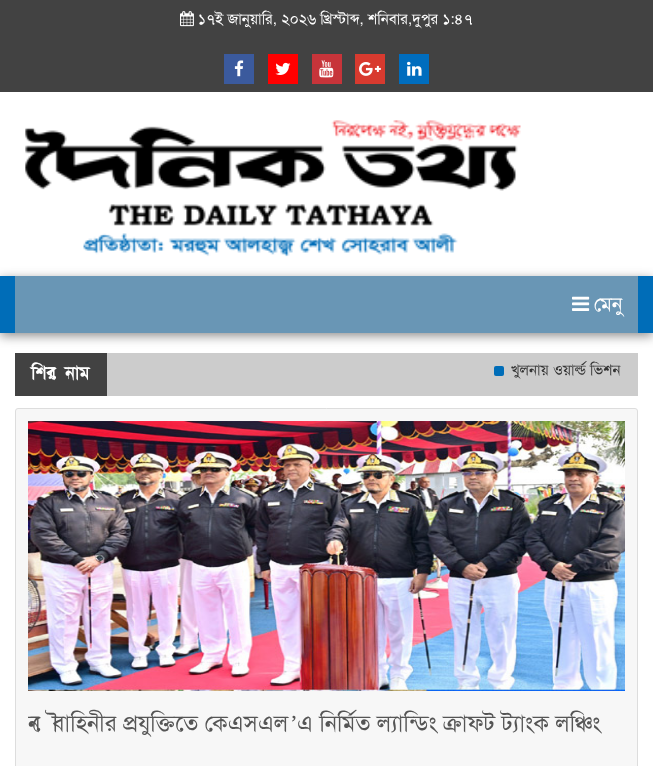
<!DOCTYPE html>
<meta charset="utf-8">
<style>body { margin: 0 } canvas { display: block }</style>
<canvas id="canvas" width="653" height="766"></canvas>
<img id="img1" src="images/1.png" hidden>
<img id="img2" src="images/2.png" hidden>
<img id="img3" src="images/3.png" hidden>
<img id="img4" src="images/4.png" hidden>
<img id="img5" src="images/5.png" hidden>
<img id="img6" src="images/6.png" hidden>
<img id="img7" src="images/7.png" hidden>
<img id="img8" src="images/8.png" hidden>
<img id="img9" src="images/9.png" hidden>
<script>
window.onload = function () {
    const canvas = document.getElementById('canvas');
    const context = canvas.getContext('2d');
    context.miterLimit = 4;
    context.fontKerning = 'normal';

    context.fillStyle = 'rgb(255, 255, 255)';
    context.fillRect(0, 0, 653, 766);
    context.fillStyle = 'rgb(66, 66, 66)';
    context.fillRect(0, 0, 653, 92);
    context.drawImage(document.getElementById('img1'), 180, 11, 14, 16);
    context.fillStyle = 'rgb(59, 90, 157)';
    context.fillRect(224, 54, 30, 30);
    context.drawImage(document.getElementById('img2'), 234, 60, 10, 17);
    context.fillStyle = 'rgb(255, 0, 0)';
    context.fillRect(268, 54, 30, 30);
    context.drawImage(document.getElementById('img3'), 275, 62, 16, 13);
    context.fillStyle = 'rgb(199, 52, 58)';
    context.fillRect(312, 54, 30, 30);
    context.drawImage(document.getElementById('img4'), 319, 60, 15, 18);
    context.fillStyle = 'rgb(216, 58, 47)';
    context.fillRect(355, 54, 30, 30);
    context.drawImage(document.getElementById('img5'), 359, 62, 22, 14);
    context.fillStyle = 'rgb(0, 109, 190)';
    context.fillRect(399, 54, 30, 30);
    context.drawImage(document.getElementById('img6'), 407, 61, 15, 15);
    context.drawImage(document.getElementById('img7'), 25, 120, 496, 137);
    context.fillStyle = 'rgb(66, 66, 66)';
    context.fillRect(15, 353, 92, 43);
    context.fillStyle = 'rgb(204, 204, 204)';
    context.fillRect(107, 353, 531, 43);
    context.fillStyle = 'rgba(50, 50, 50, 0.55)';
    context.filter = 'blur(5.5px)';
    context.beginPath();
    context.rect(0, 279, 653, 57);
    context.fill();
    context.filter = 'none';
    context.fillStyle = 'rgb(0, 109, 184)';
    context.fillRect(0, 276, 653, 57);
    context.fillStyle = 'rgb(105, 150, 181)';
    context.fillRect(15, 276, 623, 57);
    context.drawImage(document.getElementById('img8'), 572, 296, 18, 15);
    context.fillStyle = 'rgb(0, 109, 184)';
    context.beginPath();
    context.roundRect(494, 366, 10, 10, 2);
    context.fill();
    context.fillStyle = 'rgb(247, 247, 247)';
    context.beginPath();
    context.roundRect(15.5, 408.5, 622, 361, 2.5);
    context.fill();
    context.strokeStyle = 'rgb(221, 221, 221)';
    context.stroke();
    context.drawImage(document.getElementById('img9'), 28, 421, 597, 270);
    context.font = '15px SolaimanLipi';
    context.fillStyle = 'rgb(255, 255, 255)';
    context.fillText('১৭ই জানুয়ারি, ২০২৬ খ্রিস্টাব্দ, শনিবার,দুপুর ১:৪৭', 198, 24);
    context.font = '20px SolaimanLipi';
    context.fillText('মেনু', 594, 311);
    context.font = 'bold 18px SolaimanLipi';
    context.fillText('শিরোনাম', 31, 379);
    context.font = '15px SolaimanLipi';
    context.fillStyle = 'rgb(51, 51, 51)';
    context.fillText('খুলনায় ওয়ার্ল্ড ভিশন', 511, 375);
    context.save();
    context.beginPath();
    context.rect(28, 709, 597, 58);
    context.clip();
    context.font = '23px SolaimanLipi';
    context.fillStyle = 'rgb(85, 85, 85)';
    context.fillText('নৌবাহিনীর প্রযুক্তিতে কেএসএল', 28, 731);
    context.restore();
    context.font = '23px Liberation Serif';
    context.fillStyle = 'rgb(85, 85, 85)';
    context.fillText('’', 290, 731);
    context.font = '23px SolaimanLipi';
    context.fillText('এ নির্মিত ল্যান্ডিং ক্রাফট ট্যাংক লঞ্চিং', 297, 731);
};
</script>
